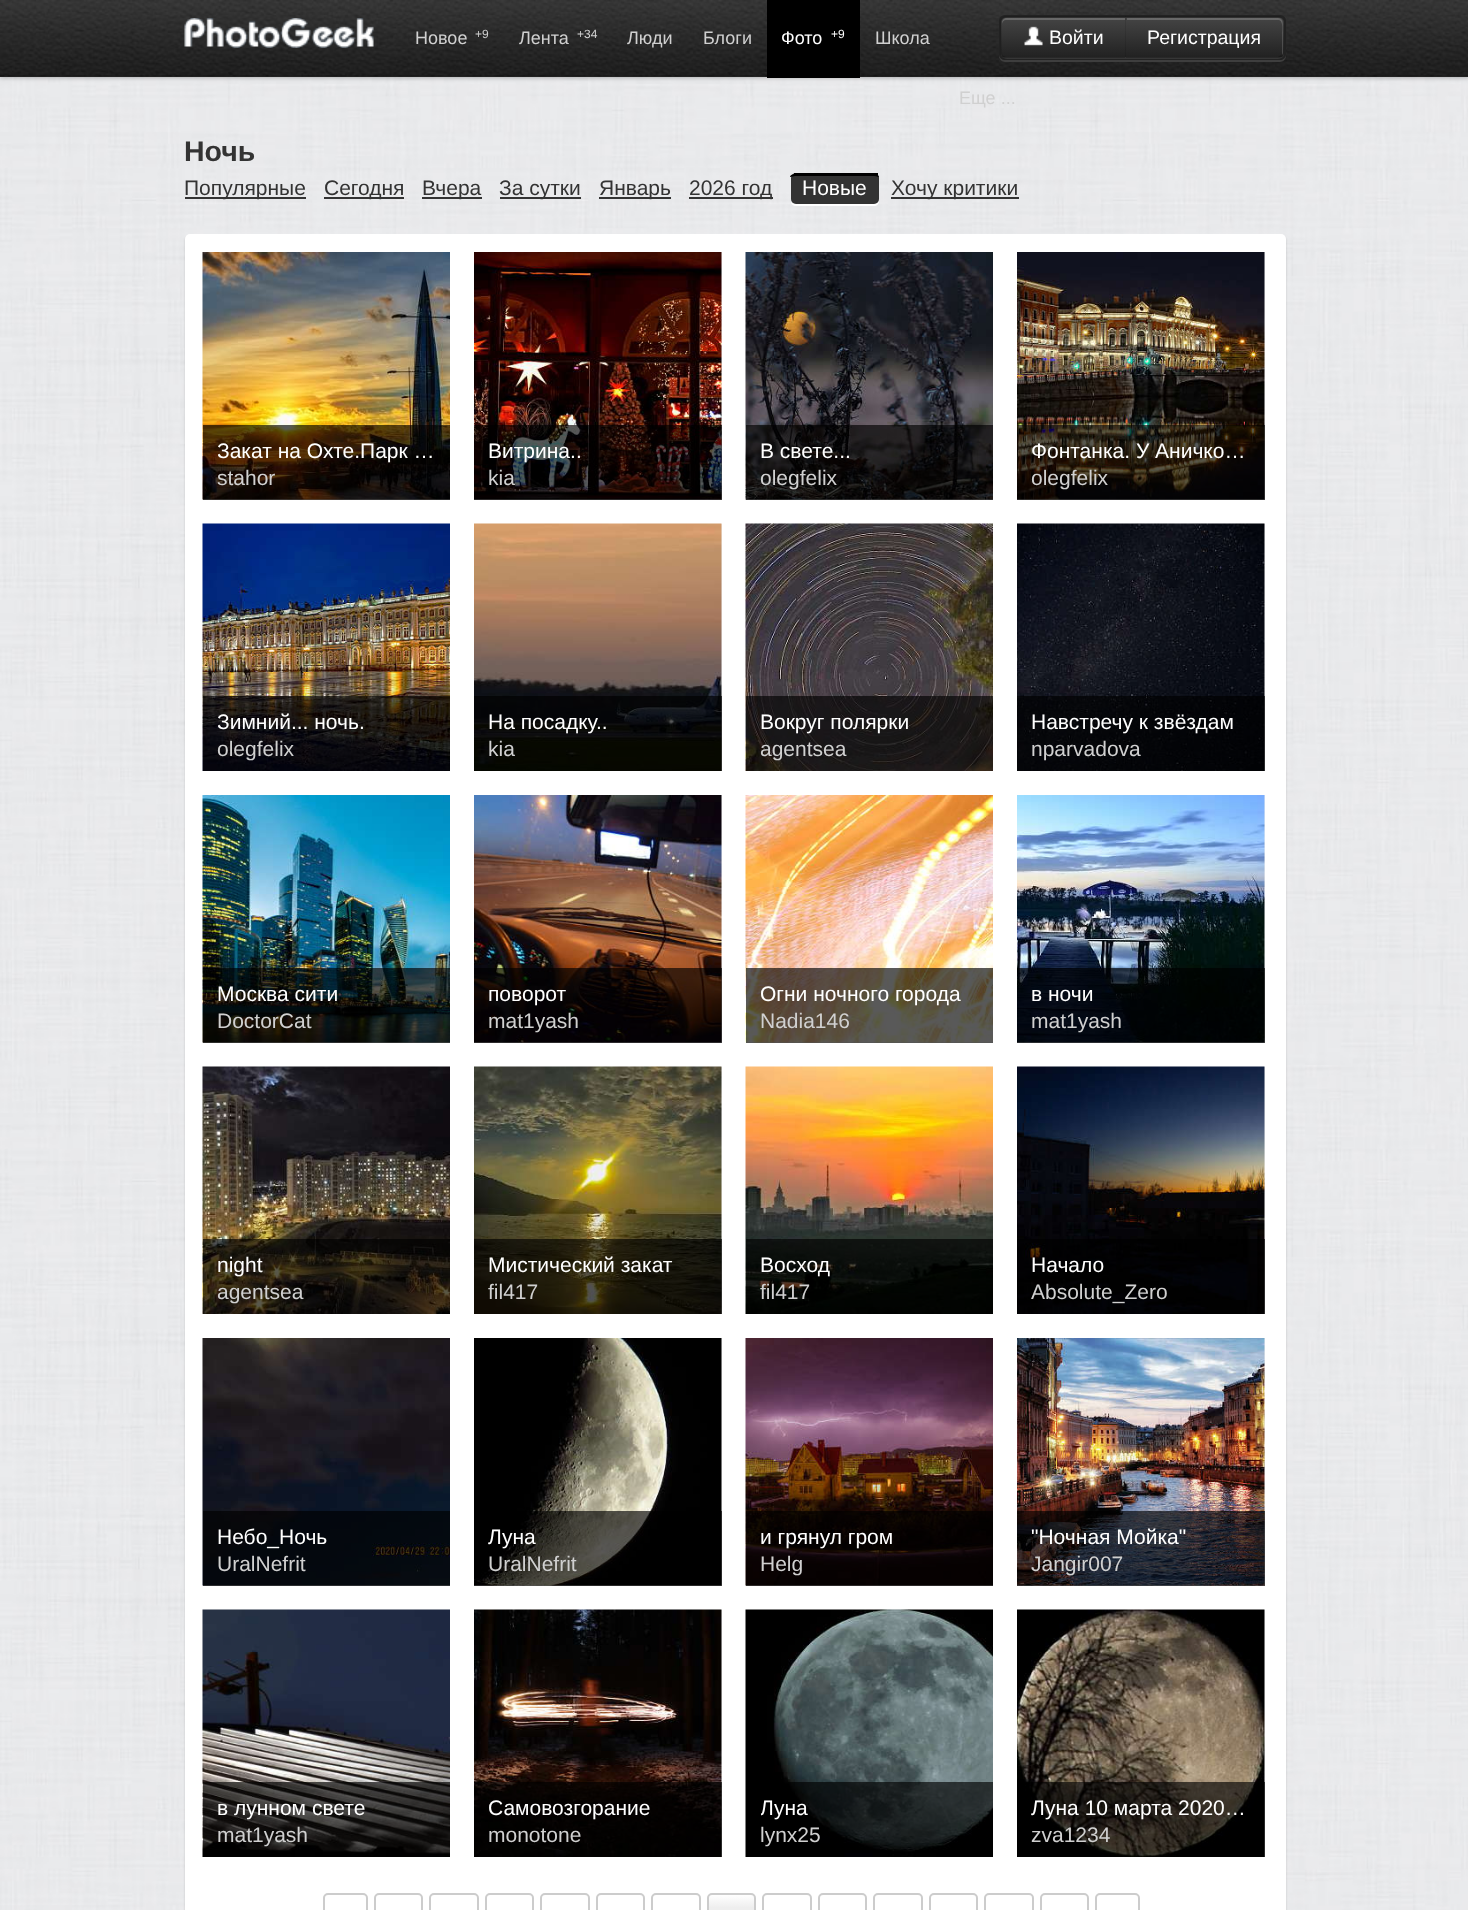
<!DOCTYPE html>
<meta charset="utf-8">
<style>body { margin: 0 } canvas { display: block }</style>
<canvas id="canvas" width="1468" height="1910"></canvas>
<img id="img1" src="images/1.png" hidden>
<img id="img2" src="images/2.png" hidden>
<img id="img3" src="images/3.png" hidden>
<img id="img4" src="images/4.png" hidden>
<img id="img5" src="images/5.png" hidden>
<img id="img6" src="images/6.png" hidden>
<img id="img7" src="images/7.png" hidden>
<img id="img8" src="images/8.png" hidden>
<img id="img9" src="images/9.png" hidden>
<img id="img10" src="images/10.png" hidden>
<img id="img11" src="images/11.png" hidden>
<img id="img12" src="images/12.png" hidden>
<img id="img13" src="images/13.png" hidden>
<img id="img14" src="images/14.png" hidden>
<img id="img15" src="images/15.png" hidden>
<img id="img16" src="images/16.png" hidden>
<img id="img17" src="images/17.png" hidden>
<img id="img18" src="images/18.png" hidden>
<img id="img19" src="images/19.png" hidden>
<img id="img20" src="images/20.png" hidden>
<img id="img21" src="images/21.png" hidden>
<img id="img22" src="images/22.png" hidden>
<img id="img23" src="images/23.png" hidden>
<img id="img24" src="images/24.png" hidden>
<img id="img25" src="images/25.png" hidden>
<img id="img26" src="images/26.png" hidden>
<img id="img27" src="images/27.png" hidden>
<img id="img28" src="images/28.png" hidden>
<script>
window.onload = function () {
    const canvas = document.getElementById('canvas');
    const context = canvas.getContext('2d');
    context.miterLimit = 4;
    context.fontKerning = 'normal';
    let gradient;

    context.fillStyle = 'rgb(255, 255, 255)';
    context.fillRect(0, 0, 1468, 1910);
    context.drawImage(document.getElementById('img1'), 0, 77, 1468, 1833);
    context.fillStyle = 'rgba(0, 0, 0, 0.25)';
    context.filter = 'blur(2px)';
    context.beginPath();
    context.rect(0, 2, 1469, 76);
    context.fill();
    context.filter = 'none';
    context.fillStyle = 'rgb(44, 44, 44)';
    context.fillRect(0, 76, 1468, 1);
    context.drawImage(document.getElementById('img2'), 0, 0, 1468, 77);
    context.fillStyle = 'rgba(0, 0, 0, 0.1)';
    context.fillRect(0, 75, 1468, 2);
    context.drawImage(document.getElementById('img3'), 184, 18, 190, 30);
    context.fillStyle = 'rgb(0, 0, 0)';
    context.fillRect(767, 0, 93, 78);
    context.fillStyle = 'rgb(62, 62, 62)';
    context.beginPath();
    context.moveTo(999, 54);
    context.lineTo(999, 56);
    context.bezierCurveTo(999, 59, 1002, 62, 1005, 62);
    context.lineTo(1280, 62);
    context.bezierCurveTo(1283, 62, 1286, 59, 1286, 56);
    context.lineTo(1286, 23);
    context.lineTo(1285, 21);
    context.lineTo(1286, 54);
    context.bezierCurveTo(1286, 57, 1283, 60, 1280, 60);
    context.lineTo(1005, 60);
    context.bezierCurveTo(1002, 60, 999, 57, 999, 54);
    context.closePath();
    context.fill();
    context.save();
    context.beginPath();
    context.roundRect(999, 15, 287, 45, 6);
    context.clip();
    gradient = context.createLinearGradient(1142, 16, 1142, 59);
    gradient.addColorStop(0, 'rgb(40, 40, 40)');
    gradient.addColorStop(1, 'rgb(51, 51, 51)');
    context.fillStyle = gradient;
    context.fillRect(999, 17, 287, 42);
    context.restore();
    context.beginPath();
    context.roundRect(1000, 16, 285, 43, 5);
    context.strokeStyle = 'rgb(34, 34, 34)';
    context.lineWidth = 2;
    context.stroke();
    context.fillStyle = 'rgb(54, 54, 54)';
    context.beginPath();
    context.roundRect(1001, 17, 126, 42, [6, 0, 0, 6]);
    context.fill();
    context.save();
    context.beginPath();
    context.roundRect(1001, 17, 126, 42, [6, 0, 0, 6]);
    context.clip();
    gradient = context.createLinearGradient(1064, 18, 1064, 57);
    gradient.addColorStop(0, 'rgb(68, 68, 68)');
    gradient.addColorStop(1, 'rgb(34, 34, 34)');
    context.fillStyle = gradient;
    context.fillRect(1001, 18, 124, 39);
    context.restore();
    context.fillStyle = 'rgba(255, 255, 255, 0.2)';
    context.beginPath();
    context.moveTo(1006, 20);
    context.lineTo(1125, 20);
    context.lineTo(1125, 18);
    context.lineTo(1007, 18);
    context.bezierCurveTo(1004, 18, 1002, 20, 1002, 23);
    context.lineTo(1002, 24);
    context.bezierCurveTo(1002, 22, 1004, 20, 1006, 20);
    context.closePath();
    context.fill();
    context.fillStyle = 'rgba(0, 0, 0, 0.1)';
    context.beginPath();
    context.moveTo(1006, 18);
    context.lineTo(1003, 19);
    context.lineTo(1002, 18);
    context.lineTo(1004, 16);
    context.lineTo(1126, 16);
    context.lineTo(1125, 18);
    context.closePath();
    context.fill();
    context.fillStyle = 'rgba(0, 0, 0, 0.25)';
    context.beginPath();
    context.moveTo(1126, 58);
    context.lineTo(1125, 57);
    context.lineTo(1006, 57);
    context.lineTo(1003, 56);
    context.lineTo(1002, 57);
    context.bezierCurveTo(1003, 58, 1005, 58, 1006, 58);
    context.closePath();
    context.fill();
    context.fillStyle = 'rgba(0, 0, 0, 0.1)';
    context.beginPath();
    context.moveTo(1000.5, 20);
    context.lineTo(1002, 18);
    context.lineTo(1003, 19);
    context.bezierCurveTo(1002.5, 20, 1002, 21, 1002, 22);
    context.lineTo(1002, 52);
    context.bezierCurveTo(1002, 53.5, 1002.5, 55, 1003.5, 55.5);
    context.lineTo(1002, 57);
    context.lineTo(1000.5, 54.5);
    context.closePath();
    context.fill();
    context.drawImage(document.getElementById('img4'), 1024, 26, 19, 20);
    context.fillStyle = 'rgb(54, 54, 54)';
    context.beginPath();
    context.roundRect(1125, 17, 159, 42, [0, 6, 6, 0]);
    context.fill();
    context.save();
    context.beginPath();
    context.roundRect(1125, 17, 159, 42, [0, 6, 6, 0]);
    context.clip();
    gradient = context.createLinearGradient(1205, 18, 1205, 57);
    gradient.addColorStop(0, 'rgb(68, 68, 68)');
    gradient.addColorStop(1, 'rgb(34, 34, 34)');
    context.fillStyle = gradient;
    context.fillRect(1125, 18, 159, 39);
    context.restore();
    context.fillStyle = 'rgba(255, 255, 255, 0.2)';
    context.beginPath();
    context.moveTo(1127, 18);
    context.lineTo(1127, 20);
    context.lineTo(1278, 20);
    context.bezierCurveTo(1284, 20, 1282, 31, 1282, 34);
    context.lineTo(1282, 55);
    context.bezierCurveTo(1283, 54, 1283, 53, 1283, 52);
    context.lineTo(1283, 23);
    context.bezierCurveTo(1283, 20, 1281, 18, 1278, 18);
    context.closePath();
    context.fill();
    context.fillStyle = 'rgba(0, 0, 0, 0.1)';
    context.beginPath();
    context.moveTo(1125, 16);
    context.lineTo(1280, 16);
    context.lineTo(1282, 18);
    context.lineTo(1281, 20);
    context.lineTo(1278, 18);
    context.lineTo(1126, 18);
    context.closePath();
    context.fill();
    context.beginPath();
    context.moveTo(1284, 52);
    context.lineTo(1284, 22);
    context.bezierCurveTo(1284, 20.5, 1283.5, 19, 1282.5, 18);
    context.lineTo(1281, 19.5);
    context.bezierCurveTo(1281.5, 20, 1282, 21, 1282, 22);
    context.lineTo(1282, 52);
    context.bezierCurveTo(1282, 53.5, 1281.5, 54.5, 1281, 55.5);
    context.lineTo(1282, 56.5);
    context.bezierCurveTo(1283, 55.5, 1284, 54, 1284, 52);
    context.closePath();
    context.fill();
    context.fillStyle = 'rgba(0, 0, 0, 0.25)';
    context.beginPath();
    context.moveTo(1282, 57);
    context.lineTo(1279, 58);
    context.lineTo(1126, 58);
    context.lineTo(1126, 57);
    context.lineTo(1278, 57);
    context.lineTo(1281, 55);
    context.closePath();
    context.fill();
    context.fillStyle = 'rgba(0, 0, 0, 0.1)';
    context.beginPath();
    context.moveTo(1126, 18);
    context.lineTo(1125, 16);
    context.lineTo(1125, 58);
    context.lineTo(1126, 57);
    context.closePath();
    context.fill();
    context.fillStyle = 'rgb(51, 51, 51)';
    context.fillRect(185, 197, 121, 2);
    context.fillRect(324, 197, 80, 2);
    context.fillRect(422, 197, 60, 2);
    context.fillRect(500, 197, 81, 2);
    context.fillRect(599, 197, 72, 2);
    context.fillRect(689, 197, 84, 2);
    context.fillStyle = 'rgb(255, 255, 255)';
    context.beginPath();
    context.moveTo(791, 202);
    context.bezierCurveTo(791, 204, 793, 206, 796, 206);
    context.lineTo(874, 206);
    context.bezierCurveTo(877, 206, 879, 204, 879, 201);
    context.lineTo(879, 200);
    context.bezierCurveTo(879, 202, 877, 204, 874, 204);
    context.lineTo(795, 204);
    context.bezierCurveTo(793, 204, 792, 203, 791, 202);
    context.closePath();
    context.fill();
    context.fillStyle = 'rgb(51, 51, 51)';
    context.beginPath();
    context.roundRect(791, 173, 88, 31, 5);
    context.fill();
    context.fillStyle = 'rgb(0, 0, 0)';
    context.beginPath();
    context.moveTo(795, 176);
    context.lineTo(874, 176);
    context.bezierCurveTo(877, 176, 879, 177, 879, 178);
    context.bezierCurveTo(879, 171, 863, 174, 861, 174);
    context.lineTo(795, 174);
    context.bezierCurveTo(793, 174, 790, 175, 790, 177);
    context.closePath();
    context.fill();
    context.fillRect(794, 173, 84, 2);
    context.fillStyle = 'rgb(51, 51, 51)';
    context.fillRect(891, 197, 128, 2);
    context.fillStyle = 'rgba(0, 0, 0, 0.15)';
    context.filter = 'blur(1px)';
    context.beginPath();
    context.roundRect(185, 236, 1101, 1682, 5);
    context.fill();
    context.filter = 'none';
    context.fillStyle = 'rgb(255, 255, 255)';
    context.beginPath();
    context.roundRect(185, 234, 1101, 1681, 5);
    context.fill();
    context.fillStyle = 'rgb(238, 238, 238)';
    context.fillRect(203, 499, 247, 1);
    context.drawImage(document.getElementById('img5'), 202, 252, 248, 248);
    context.fillStyle = 'rgba(0, 0, 0, 0.65)';
    context.fillRect(203, 425, 247, 75);
    context.fillStyle = 'rgb(238, 238, 238)';
    context.fillRect(474, 252, 248, 248);
    context.drawImage(document.getElementById('img6'), 474, 252, 248, 248);
    context.fillStyle = 'rgba(0, 0, 0, 0.65)';
    context.fillRect(474, 425, 248, 75);
    context.fillStyle = 'rgb(238, 238, 238)';
    context.fillRect(746, 499, 247, 1);
    context.drawImage(document.getElementById('img7'), 745, 252, 248, 248);
    context.fillStyle = 'rgba(0, 0, 0, 0.65)';
    context.fillRect(746, 425, 247, 75);
    context.fillStyle = 'rgb(238, 238, 238)';
    context.fillRect(1017, 252, 248, 248);
    context.drawImage(document.getElementById('img8'), 1017, 252, 248, 248);
    context.fillStyle = 'rgba(0, 0, 0, 0.65)';
    context.fillRect(1017, 425, 248, 75);
    context.drawImage(document.getElementById('img9'), 202, 523, 248, 248);
    context.fillRect(203, 696, 247, 75);
    context.fillStyle = 'rgb(238, 238, 238)';
    context.fillRect(721, 524, 1, 247);
    context.drawImage(document.getElementById('img10'), 474, 523, 248, 248);
    context.fillStyle = 'rgba(0, 0, 0, 0.65)';
    context.fillRect(474, 696, 248, 75);
    context.drawImage(document.getElementById('img11'), 745, 523, 248, 248);
    context.fillRect(746, 696, 247, 75);
    context.fillStyle = 'rgb(238, 238, 238)';
    context.fillRect(1264, 524, 1, 247);
    context.drawImage(document.getElementById('img12'), 1017, 523, 248, 248);
    context.fillStyle = 'rgba(0, 0, 0, 0.65)';
    context.fillRect(1017, 696, 248, 75);
    context.fillStyle = 'rgb(238, 238, 238)';
    context.fillRect(203, 1042, 247, 1);
    context.drawImage(document.getElementById('img13'), 202, 795, 248, 248);
    context.fillStyle = 'rgba(0, 0, 0, 0.65)';
    context.fillRect(203, 968, 247, 75);
    context.fillStyle = 'rgb(238, 238, 238)';
    context.fillRect(474, 795, 248, 248);
    context.drawImage(document.getElementById('img14'), 474, 795, 248, 248);
    context.fillStyle = 'rgba(0, 0, 0, 0.65)';
    context.fillRect(474, 968, 248, 75);
    context.fillStyle = 'rgb(238, 238, 238)';
    context.fillRect(746, 1042, 247, 1);
    context.drawImage(document.getElementById('img15'), 745, 795, 248, 248);
    context.fillStyle = 'rgba(0, 0, 0, 0.65)';
    context.fillRect(746, 968, 247, 75);
    context.fillStyle = 'rgb(238, 238, 238)';
    context.fillRect(1017, 795, 248, 248);
    context.drawImage(document.getElementById('img16'), 1017, 795, 248, 248);
    context.fillStyle = 'rgba(0, 0, 0, 0.65)';
    context.fillRect(1017, 968, 248, 75);
    context.drawImage(document.getElementById('img17'), 202, 1066, 248, 248);
    context.fillRect(203, 1239, 247, 75);
    context.fillStyle = 'rgb(238, 238, 238)';
    context.fillRect(721, 1067, 1, 247);
    context.drawImage(document.getElementById('img18'), 474, 1066, 248, 248);
    context.fillStyle = 'rgba(0, 0, 0, 0.65)';
    context.fillRect(474, 1239, 248, 75);
    context.drawImage(document.getElementById('img19'), 745, 1066, 248, 248);
    context.fillRect(746, 1239, 247, 75);
    context.fillStyle = 'rgb(238, 238, 238)';
    context.fillRect(1264, 1067, 1, 247);
    context.drawImage(document.getElementById('img20'), 1017, 1066, 248, 248);
    context.fillStyle = 'rgba(0, 0, 0, 0.65)';
    context.fillRect(1017, 1239, 248, 75);
    context.fillStyle = 'rgb(238, 238, 238)';
    context.fillRect(203, 1585, 247, 1);
    context.drawImage(document.getElementById('img21'), 202, 1338, 248, 248);
    context.fillStyle = 'rgba(0, 0, 0, 0.65)';
    context.fillRect(203, 1511, 247, 75);
    context.fillStyle = 'rgb(238, 238, 238)';
    context.fillRect(474, 1338, 248, 248);
    context.drawImage(document.getElementById('img22'), 474, 1338, 248, 248);
    context.fillStyle = 'rgba(0, 0, 0, 0.65)';
    context.fillRect(474, 1511, 248, 75);
    context.fillStyle = 'rgb(238, 238, 238)';
    context.fillRect(746, 1585, 247, 1);
    context.drawImage(document.getElementById('img23'), 745, 1338, 248, 248);
    context.fillStyle = 'rgba(0, 0, 0, 0.65)';
    context.fillRect(746, 1511, 247, 75);
    context.fillStyle = 'rgb(238, 238, 238)';
    context.fillRect(1017, 1338, 248, 248);
    context.drawImage(document.getElementById('img24'), 1017, 1338, 248, 248);
    context.fillStyle = 'rgba(0, 0, 0, 0.65)';
    context.fillRect(1017, 1511, 248, 75);
    context.drawImage(document.getElementById('img25'), 202, 1609, 248, 248);
    context.fillRect(203, 1782, 247, 75);
    context.fillStyle = 'rgb(238, 238, 238)';
    context.fillRect(721, 1610, 1, 247);
    context.drawImage(document.getElementById('img26'), 474, 1609, 248, 248);
    context.fillStyle = 'rgba(0, 0, 0, 0.65)';
    context.fillRect(474, 1782, 248, 75);
    context.drawImage(document.getElementById('img27'), 745, 1609, 248, 248);
    context.fillRect(788, 1782, 205, 71);
    context.fillStyle = 'rgb(238, 238, 238)';
    context.fillRect(1264, 1610, 1, 247);
    context.drawImage(document.getElementById('img28'), 1017, 1609, 248, 248);
    context.fillStyle = 'rgba(0, 0, 0, 0.65)';
    context.fillRect(1026, 1782, 239, 75);
    context.beginPath();
    context.roundRect(324, 1894, 43, 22, 4);
    context.strokeStyle = 'rgb(204, 204, 204)';
    context.stroke();
    context.beginPath();
    context.roundRect(375, 1894, 47, 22, 4);
    context.stroke();
    context.beginPath();
    context.roundRect(430, 1894, 48, 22, 4);
    context.stroke();
    context.beginPath();
    context.roundRect(486, 1894, 47, 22, 4);
    context.stroke();
    context.beginPath();
    context.roundRect(541, 1894, 48, 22, 4);
    context.stroke();
    context.beginPath();
    context.roundRect(597, 1894, 47, 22, 4);
    context.stroke();
    context.beginPath();
    context.roundRect(652, 1894, 48, 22, 4);
    context.stroke();
    context.save();
    context.beginPath();
    context.roundRect(707, 1893, 49, 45, 5);
    context.clip();
    gradient = context.createLinearGradient(708, 1895, 708, 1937);
    gradient.addColorStop(0, 'rgb(255, 255, 255)');
    gradient.addColorStop(0.3, 'rgb(238, 238, 238)');
    context.fillStyle = gradient;
    context.fillRect(707, 1895, 49, 15);
    context.restore();
    context.beginPath();
    context.roundRect(708, 1894, 47, 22, 4);
    context.stroke();
    context.beginPath();
    context.roundRect(763, 1894, 48, 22, 4);
    context.stroke();
    context.beginPath();
    context.roundRect(819, 1894, 47, 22, 4);
    context.stroke();
    context.beginPath();
    context.roundRect(874, 1894, 48, 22, 4);
    context.stroke();
    context.beginPath();
    context.roundRect(930, 1894, 47, 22, 4);
    context.stroke();
    context.beginPath();
    context.roundRect(985, 1894, 48, 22, 4);
    context.stroke();
    context.beginPath();
    context.roundRect(1041, 1894, 47, 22, 4);
    context.stroke();
    context.beginPath();
    context.roundRect(1096, 1894, 43, 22, 4);
    context.stroke();
    context.font = '18px Liberation Sans';
    context.fillStyle = 'rgb(208, 208, 208)';
    context.fillText('Новое', 415, 44);
    context.font = '12px Liberation Sans';
    context.fillText('+9', 475, 38);
    context.font = '18px Liberation Sans';
    context.fillText('Лента', 519, 44);
    context.font = '12px Liberation Sans';
    context.fillText('+34', 577, 38);
    context.font = '18px Liberation Sans';
    context.fillText('Люди', 627, 44);
    context.fillText('Блоги', 703, 44);
    context.fillStyle = 'rgb(255, 255, 255)';
    context.fillText('Фото', 781, 44);
    context.font = '12px Liberation Sans';
    context.fillText('+9', 831, 38);
    context.font = '18px Liberation Sans';
    context.fillStyle = 'rgb(208, 208, 208)';
    context.fillText('Школа', 875, 44);
    context.fillText('Еще ...', 959, 104);
    context.font = '19.5px Liberation Sans';
    context.fillStyle = 'rgb(255, 255, 255)';
    context.fillText('Войти', 1049, 44);
    context.fillText('Регистрация', 1147, 44);
    context.font = 'bold 28.5px Liberation Sans';
    context.fillStyle = 'rgb(51, 51, 51)';
    context.fillText('Ночь', 184, 161);
    context.font = '21px Liberation Sans';
    context.fillText('Популярные', 184, 195);
    context.fillText('Сегодня', 324, 195);
    context.fillText('Вчера', 422, 195);
    context.fillText('За сутки', 499, 195);
    context.fillText('Январь', 599, 195);
    context.fillText('2026 год', 689, 195);
    context.fillStyle = 'rgb(255, 255, 255)';
    context.fillText('Новые', 802, 195);
    context.fillStyle = 'rgb(51, 51, 51)';
    context.fillText('Хочу критики', 891, 195);
    context.save();
    context.beginPath();
    context.rect(218, 437, 219, 31);
    context.clip();
    context.fillStyle = 'rgb(255, 255, 255)';
    context.fillText('Закат на Охте.Парк …', 217, 458);
    context.restore();
    context.fillStyle = 'rgb(208, 208, 208)';
    context.fillText('stahor', 217, 485);
    context.fillStyle = 'rgb(255, 255, 255)';
    context.fillText('Витрина..', 488, 458);
    context.fillStyle = 'rgb(208, 208, 208)';
    context.fillText('kia', 488, 485);
    context.fillStyle = 'rgb(255, 255, 255)';
    context.fillText('В свете...', 760, 458);
    context.fillStyle = 'rgb(208, 208, 208)';
    context.fillText('olegfelix', 760, 485);
    context.fillStyle = 'rgb(255, 255, 255)';
    context.fillText('Фонтанка. У Аничко…', 1031, 458);
    context.fillStyle = 'rgb(208, 208, 208)';
    context.fillText('olegfelix', 1031, 485);
    context.save();
    context.beginPath();
    context.rect(218, 708, 219, 32);
    context.clip();
    context.fillStyle = 'rgb(255, 255, 255)';
    context.fillText('Зимний... ночь.', 217, 729);
    context.restore();
    context.fillText('olegfelix', 217, 756);
    context.fillStyle = 'rgb(255, 255, 255)';
    context.fillText('На посадку..', 488, 729);
    context.fillStyle = 'rgb(208, 208, 208)';
    context.fillText('kia', 488, 756);
    context.fillStyle = 'rgb(255, 255, 255)';
    context.fillText('Вокруг полярки', 760, 729);
    context.fillStyle = 'rgb(208, 208, 208)';
    context.fillText('agentsea', 760, 756);
    context.fillStyle = 'rgb(255, 255, 255)';
    context.fillText('Навстречу к звёздам', 1031, 729);
    context.fillStyle = 'rgb(208, 208, 208)';
    context.fillText('nparvadova', 1031, 756);
    context.fillStyle = 'rgb(255, 255, 255)';
    context.fillText('Москва сити', 217, 1001);
    context.fillStyle = 'rgb(208, 208, 208)';
    context.fillText('DoctorCat', 217, 1028);
    context.fillStyle = 'rgb(255, 255, 255)';
    context.fillText('поворот', 488, 1001);
    context.fillStyle = 'rgb(208, 208, 208)';
    context.fillText('mat1yash', 488, 1028);
    context.save();
    context.beginPath();
    context.rect(761, 980, 219, 31);
    context.clip();
    context.fillStyle = 'rgb(255, 255, 255)';
    context.fillText('Огни ночного города', 760, 1001);
    context.restore();
    context.fillText('Nadia146', 760, 1028);
    context.fillStyle = 'rgb(255, 255, 255)';
    context.fillText('в ночи', 1031, 1001);
    context.fillStyle = 'rgb(208, 208, 208)';
    context.fillText('mat1yash', 1031, 1028);
    context.fillStyle = 'rgb(255, 255, 255)';
    context.fillText('night', 217, 1272);
    context.fillStyle = 'rgb(208, 208, 208)';
    context.fillText('agentsea', 217, 1299);
    context.fillStyle = 'rgb(255, 255, 255)';
    context.fillText('Мистический закат', 488, 1272);
    context.fillStyle = 'rgb(208, 208, 208)';
    context.fillText('fil417', 488, 1299);
    context.fillStyle = 'rgb(255, 255, 255)';
    context.fillText('Восход', 760, 1272);
    context.fillStyle = 'rgb(208, 208, 208)';
    context.fillText('fil417', 760, 1299);
    context.fillStyle = 'rgb(255, 255, 255)';
    context.fillText('Начало', 1031, 1272);
    context.fillStyle = 'rgb(208, 208, 208)';
    context.fillText('Absolute_Zero', 1031, 1299);
    context.fillStyle = 'rgb(255, 255, 255)';
    context.fillText('Небо_Ночь', 217, 1544);
    context.fillStyle = 'rgb(208, 208, 208)';
    context.fillText('UralNefrit', 217, 1571);
    context.fillStyle = 'rgb(255, 255, 255)';
    context.fillText('Луна', 488, 1544);
    context.fillStyle = 'rgb(208, 208, 208)';
    context.fillText('UralNefrit', 488, 1571);
    context.fillStyle = 'rgb(255, 255, 255)';
    context.fillText('и грянул гром', 760, 1544);
    context.fillStyle = 'rgb(208, 208, 208)';
    context.fillText('Helg', 760, 1571);
    context.fillStyle = 'rgb(255, 255, 255)';
    context.fillText('"Ночная Мойка"', 1031, 1544);
    context.fillStyle = 'rgb(208, 208, 208)';
    context.fillText('Jangir007', 1031, 1571);
    context.fillStyle = 'rgb(255, 255, 255)';
    context.fillText('в лунном свете', 217, 1815);
    context.fillStyle = 'rgb(208, 208, 208)';
    context.fillText('mat1yash', 217, 1842);
    context.fillStyle = 'rgb(255, 255, 255)';
    context.fillText('Самовозгорание', 488, 1815);
    context.fillStyle = 'rgb(208, 208, 208)';
    context.fillText('monotone', 488, 1842);
    context.save();
    context.beginPath();
    context.rect(761, 1794, 219, 32);
    context.clip();
    context.fillStyle = 'rgb(255, 255, 255)';
    context.fillText('Луна', 760, 1815);
    context.restore();
    context.fillText('lynx25', 760, 1842);
    context.fillStyle = 'rgb(255, 255, 255)';
    context.fillText('Луна 10 марта 2020…', 1031, 1815);
    context.fillStyle = 'rgb(208, 208, 208)';
    context.fillText('zva1234', 1031, 1842);
};
</script>
